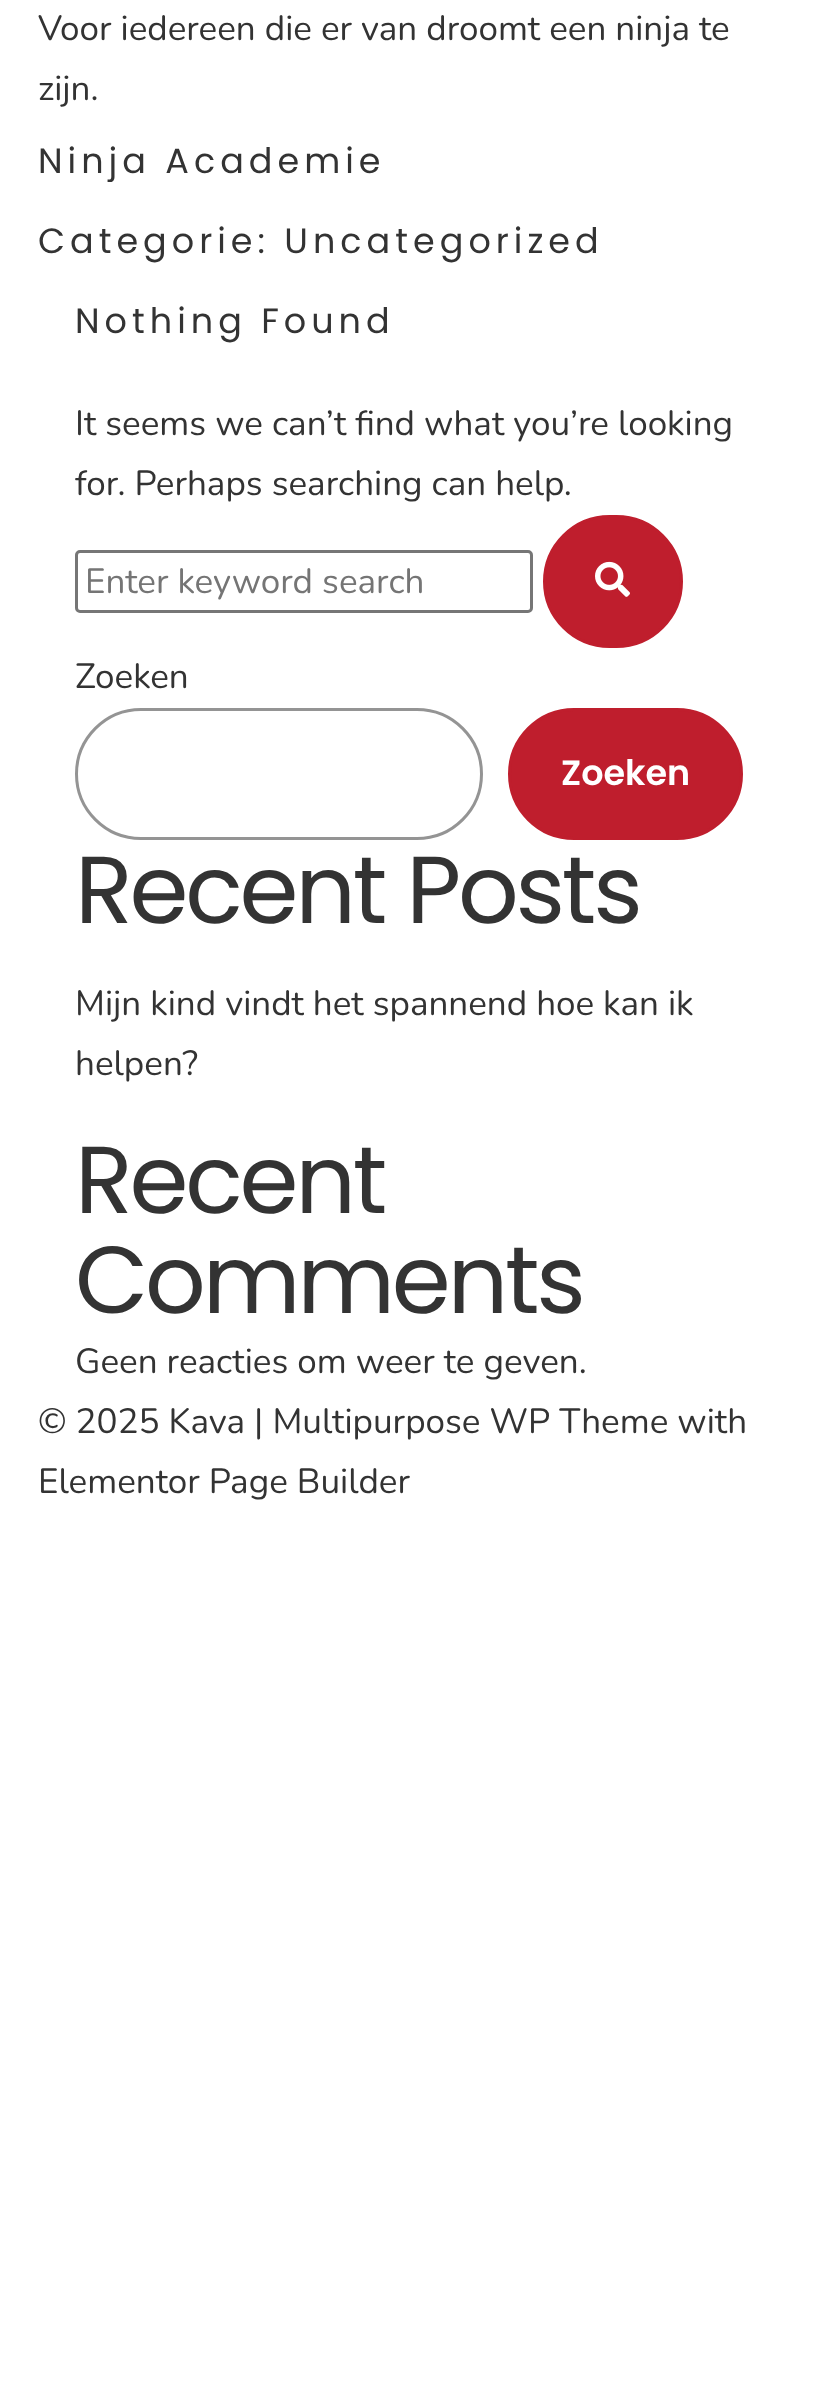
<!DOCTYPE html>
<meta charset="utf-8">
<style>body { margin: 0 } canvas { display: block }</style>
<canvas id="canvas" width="816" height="2401"></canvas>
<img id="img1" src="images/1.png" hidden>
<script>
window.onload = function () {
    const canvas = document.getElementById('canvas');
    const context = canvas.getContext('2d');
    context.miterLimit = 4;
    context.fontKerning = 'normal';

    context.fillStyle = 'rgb(255, 255, 255)';
    context.fillRect(0, 0, 816, 2401);
    context.beginPath();
    context.roundRect(76.5, 551.5, 455, 60, 3.5);
    context.strokeStyle = 'rgb(118, 118, 118)';
    context.lineWidth = 3;
    context.stroke();
    context.fillStyle = 'rgb(191, 30, 45)';
    context.beginPath();
    context.roundRect(544.5, 516.5, 137, 130, 65);
    context.fill();
    context.strokeStyle = 'rgb(191, 30, 45)';
    context.stroke();
    context.drawImage(document.getElementById('img1'), 595, 561, 35, 36);
    context.beginPath();
    context.roundRect(76.5, 709.5, 405, 129, 64.5);
    context.strokeStyle = 'rgb(148, 148, 148)';
    context.stroke();
    context.beginPath();
    context.roundRect(509.5, 709.5, 232, 129, 64.5);
    context.fill();
    context.strokeStyle = 'rgb(191, 30, 45)';
    context.stroke();
    context.font = '35px Nunito';
    context.fillStyle = 'rgb(51, 51, 51)';
    context.fillText('Voor iedereen die er van droomt een ninja te', 38, 40);
    context.fillText('zijn.', 38, 100);
    context.letterSpacing = '5px';
    context.font = '35px Poppins';
    context.fillText('Ninja Academie', 38, 173);
    context.fillText('Categorie: Uncategorized', 38, 253);
    context.fillText('Nothing Found', 75, 333);
    context.letterSpacing = '0px';
    context.font = '35px Nunito';
    context.fillText('It seems we can’t find what you’re looking', 75, 435);
    context.fillText('for. Perhaps searching can help.', 75, 495);
    context.fillStyle = 'rgb(117, 117, 117)';
    context.fillText('Enter keyword search', 85, 593);
    context.fillStyle = 'rgb(51, 51, 51)';
    context.fillText('Zoeken', 75, 688);
    context.font = '600 35px Poppins';
    context.fillStyle = 'rgb(255, 255, 255)';
    context.fillText('Zoeken', 561, 785);
    context.letterSpacing = '-3.25px';
    context.font = '95px Poppins';
    context.fillStyle = 'rgb(51, 51, 51)';
    context.fillText('Recent Posts', 75, 923);
    context.letterSpacing = '0px';
    context.font = '35px Nunito';
    context.fillText('Mijn kind vindt het spannend hoe kan ik', 75, 1015);
    context.fillText('helpen?', 75, 1075);
    context.letterSpacing = '-3.25px';
    context.font = '95px Poppins';
    context.fillText('Recent', 75, 1213);
    context.fillText('Comments', 75, 1313);
    context.letterSpacing = '0px';
    context.font = '35px Nunito';
    context.fillText('Geen reacties om weer te geven.', 75, 1373);
    context.fillText('© 2025 Kava | Multipurpose WP Theme with', 38, 1433);
    context.fillText('Elementor Page Builder', 38, 1493);
};
</script>
